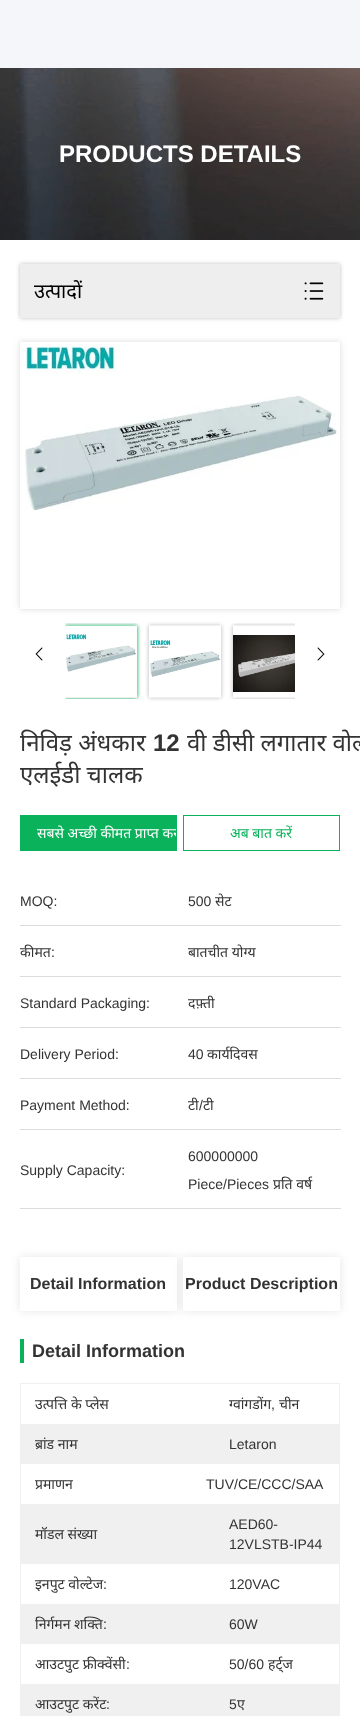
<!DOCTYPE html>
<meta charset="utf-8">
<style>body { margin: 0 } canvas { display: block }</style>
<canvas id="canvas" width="360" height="1716"></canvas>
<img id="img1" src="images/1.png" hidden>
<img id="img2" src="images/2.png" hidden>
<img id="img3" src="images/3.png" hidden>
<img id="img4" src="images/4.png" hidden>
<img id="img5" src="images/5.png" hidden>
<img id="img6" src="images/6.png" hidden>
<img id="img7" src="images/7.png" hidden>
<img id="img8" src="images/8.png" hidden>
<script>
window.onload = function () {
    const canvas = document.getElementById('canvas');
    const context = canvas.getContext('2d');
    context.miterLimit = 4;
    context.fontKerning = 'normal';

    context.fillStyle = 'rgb(244, 246, 249)';
    context.fillRect(0, 0, 360, 1716);
    context.fillStyle = 'rgb(255, 255, 255)';
    context.fillRect(0, 240, 360, 1476);
    context.drawImage(document.getElementById('img1'), 0, 68, 360, 172);
    context.fillStyle = 'rgba(0, 0, 0, 0.25)';
    context.filter = 'blur(2px)';
    context.beginPath();
    context.rect(20, 264, 320, 54);
    context.fill();
    context.filter = 'none';
    context.fillStyle = 'rgb(238, 238, 238)';
    context.fillRect(20, 264, 320, 54);
    context.drawImage(document.getElementById('img2'), 304, 282, 20, 18);
    context.save();
    context.beginPath();
    context.moveTo(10, 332);
    context.lineTo(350, 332);
    context.lineTo(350, 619);
    context.lineTo(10, 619);
    context.closePath();
    context.moveTo(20, 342);
    context.lineTo(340, 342);
    context.lineTo(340, 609);
    context.lineTo(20, 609);
    context.closePath();
    context.clip('evenodd');
    context.fillStyle = 'rgba(0, 0, 0, 0.15)';
    context.filter = 'blur(3px)';
    context.beginPath();
    context.rect(20, 342, 320, 267);
    context.fill();
    context.filter = 'none';
    context.restore();
    context.drawImage(document.getElementById('img3'), 25, 344, 312, 167);
    context.drawImage(document.getElementById('img4'), 35, 647, 8, 14);
    context.save();
    context.beginPath();
    context.rect(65, 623, 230, 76);
    context.clip();
    context.beginPath();
    context.moveTo(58, 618);
    context.lineTo(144, 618);
    context.lineTo(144, 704);
    context.lineTo(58, 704);
    context.closePath();
    context.moveTo(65, 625);
    context.lineTo(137, 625);
    context.lineTo(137, 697);
    context.lineTo(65, 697);
    context.closePath();
    context.clip('evenodd');
    context.fillStyle = 'rgba(0, 0, 0, 0.15)';
    context.filter = 'blur(2px)';
    context.beginPath();
    context.rect(65, 625, 72, 72);
    context.fill();
    context.filter = 'none';
    context.restore();
    context.save();
    context.beginPath();
    context.rect(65, 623, 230, 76);
    context.clip();
    context.beginPath();
    context.moveTo(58, 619);
    context.lineTo(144, 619);
    context.lineTo(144, 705);
    context.lineTo(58, 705);
    context.closePath();
    context.moveTo(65, 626);
    context.lineTo(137, 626);
    context.lineTo(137, 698);
    context.lineTo(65, 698);
    context.closePath();
    context.clip('evenodd');
    context.fillStyle = 'rgb(10, 179, 91)';
    context.filter = 'blur(2px)';
    context.beginPath();
    context.rect(65, 626, 72, 72);
    context.fill();
    context.filter = 'none';
    context.restore();
    context.drawImage(document.getElementById('img5'), 66, 634, 71, 38);
    context.save();
    context.beginPath();
    context.moveTo(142, 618);
    context.lineTo(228, 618);
    context.lineTo(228, 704);
    context.lineTo(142, 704);
    context.closePath();
    context.moveTo(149, 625);
    context.lineTo(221, 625);
    context.lineTo(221, 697);
    context.lineTo(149, 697);
    context.closePath();
    context.clip('evenodd');
    context.fillStyle = 'rgba(0, 0, 0, 0.15)';
    context.filter = 'blur(2px)';
    context.beginPath();
    context.rect(149, 625, 72, 72);
    context.fill();
    context.filter = 'none';
    context.restore();
    context.save();
    context.beginPath();
    context.moveTo(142, 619);
    context.lineTo(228, 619);
    context.lineTo(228, 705);
    context.lineTo(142, 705);
    context.closePath();
    context.moveTo(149, 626);
    context.lineTo(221, 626);
    context.lineTo(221, 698);
    context.lineTo(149, 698);
    context.closePath();
    context.clip('evenodd');
    context.fillStyle = 'rgba(0, 0, 0, 0.15)';
    context.filter = 'blur(2px)';
    context.beginPath();
    context.rect(149, 626, 72, 72);
    context.fill();
    context.filter = 'none';
    context.restore();
    context.drawImage(document.getElementById('img6'), 150, 640, 71, 37);
    context.save();
    context.beginPath();
    context.rect(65, 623, 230, 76);
    context.clip();
    context.beginPath();
    context.moveTo(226, 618);
    context.lineTo(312, 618);
    context.lineTo(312, 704);
    context.lineTo(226, 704);
    context.closePath();
    context.moveTo(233, 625);
    context.lineTo(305, 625);
    context.lineTo(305, 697);
    context.lineTo(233, 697);
    context.closePath();
    context.clip('evenodd');
    context.fillStyle = 'rgba(0, 0, 0, 0.15)';
    context.filter = 'blur(2px)';
    context.beginPath();
    context.rect(233, 625, 72, 72);
    context.fill();
    context.filter = 'none';
    context.restore();
    context.save();
    context.beginPath();
    context.rect(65, 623, 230, 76);
    context.clip();
    context.beginPath();
    context.moveTo(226, 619);
    context.lineTo(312, 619);
    context.lineTo(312, 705);
    context.lineTo(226, 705);
    context.closePath();
    context.moveTo(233, 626);
    context.lineTo(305, 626);
    context.lineTo(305, 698);
    context.lineTo(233, 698);
    context.closePath();
    context.clip('evenodd');
    context.fillStyle = 'rgba(0, 0, 0, 0.15)';
    context.filter = 'blur(2px)';
    context.beginPath();
    context.rect(233, 626, 72, 72);
    context.fill();
    context.filter = 'none';
    context.restore();
    context.drawImage(document.getElementById('img7'), 233, 635, 62, 57);
    context.drawImage(document.getElementById('img8'), 317, 647, 8, 14);
    context.fillStyle = 'rgb(10, 179, 91)';
    context.fillRect(20, 815, 157, 36);
    context.strokeStyle = 'rgb(10, 179, 91)';
    context.strokeRect(183.5, 815.5, 156, 35);
    context.fillStyle = 'rgb(220, 220, 220)';
    context.fillRect(20, 925, 321, 1);
    context.fillRect(20, 976, 321, 1);
    context.fillRect(20, 1027, 321, 1);
    context.fillRect(20, 1078, 321, 1);
    context.fillRect(20, 1129, 321, 1);
    context.fillRect(20, 1208, 321, 1);
    context.save();
    context.beginPath();
    context.moveTo(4, 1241);
    context.lineTo(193, 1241);
    context.lineTo(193, 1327);
    context.lineTo(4, 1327);
    context.closePath();
    context.moveTo(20, 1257);
    context.lineTo(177, 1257);
    context.lineTo(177, 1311);
    context.lineTo(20, 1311);
    context.closePath();
    context.clip('evenodd');
    context.fillStyle = 'rgba(0, 0, 0, 0.1)';
    context.filter = 'blur(5px)';
    context.beginPath();
    context.rect(20, 1257, 157, 54);
    context.fill();
    context.filter = 'none';
    context.restore();
    context.fillStyle = 'rgba(0, 0, 0, 0.1)';
    context.filter = 'blur(5px)';
    context.beginPath();
    context.rect(183, 1257, 157, 54);
    context.fill();
    context.filter = 'none';
    context.fillStyle = 'rgb(255, 255, 255)';
    context.fillRect(183, 1257, 157, 54);
    context.fillStyle = 'rgb(10, 179, 91)';
    context.fillRect(20, 1339, 4, 24);
    context.strokeStyle = 'rgb(240, 240, 240)';
    context.strokeRect(20.5, 1383.5, 319, 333);
    context.fillStyle = 'rgb(240, 240, 240)';
    context.fillRect(21, 1424, 318, 40);
    context.fillRect(21, 1504, 318, 60);
    context.fillRect(21, 1604, 318, 40);
    context.fillRect(21, 1684, 318, 32);
    context.font = 'bold 24px Liberation Sans';
    context.fillStyle = 'rgb(255, 255, 255)';
    context.fillText('PRODUCTS DETAILS', 59, 162);
    context.font = '20px Noto Sans';
    context.fillStyle = 'rgb(0, 0, 0)';
    context.fillText('उत्पादों', 34, 298);
    context.font = '24px Noto Sans';
    context.fillStyle = 'rgb(51, 51, 51)';
    context.fillText('निविड़ अंधकार', 20, 751);
    context.font = 'bold 24px Liberation Sans';
    context.fillText('12', 153, 751);
    context.font = '24px Noto Sans';
    context.fillText('वी डीसी लगातार वोल्', 187, 751);
    context.fillText('एलईडी चालक', 20, 783);
    context.save();
    context.beginPath();
    context.rect(37, 825, 139, 16);
    context.clip();
    context.font = '14px Noto Sans';
    context.fillStyle = 'rgb(255, 255, 255)';
    context.fillText('सबसे अच्छी कीमत प्राप्त कर', 37, 838);
    context.restore();
    context.font = '14px Noto Sans';
    context.fillStyle = 'rgb(10, 179, 91)';
    context.fillText('अब बात करें', 230, 838);
    context.font = '14px Liberation Sans';
    context.fillStyle = 'rgb(51, 51, 51)';
    context.fillText('MOQ:', 20, 906);
    context.fillText('500', 188, 906);
    context.font = '14px Noto Sans';
    context.fillText('सेट', 215, 906);
    context.fillText('कीमत', 20, 957);
    context.font = '14px Liberation Sans';
    context.fillText(':', 51, 957);
    context.font = '14px Noto Sans';
    context.fillText('बातचीत योग्य', 188, 957);
    context.font = '14px Liberation Sans';
    context.fillText('Standard Packaging:', 20, 1008);
    context.font = '14px Noto Sans';
    context.fillText('दफ़्ती', 188, 1008);
    context.font = '14px Liberation Sans';
    context.fillText('Delivery Period:', 20, 1059);
    context.fillText('40', 188, 1059);
    context.font = '14px Noto Sans';
    context.fillText('कार्यदिवस', 207, 1059);
    context.font = '14px Liberation Sans';
    context.fillText('Payment Method:', 20, 1110);
    context.save();
    context.beginPath();
    context.rect(188, 1079, 152, 50);
    context.clip();
    context.font = '14px Noto Sans';
    context.fillText('टी', 188, 1110);
    context.restore();
    context.fillText('/', 199, 1110);
    context.font = '14px Noto Sans';
    context.fillText('टी', 203, 1110);
    context.font = '14px Liberation Sans';
    context.fillText('Supply Capacity:', 20, 1175);
    context.fillText('600000000', 188, 1161);
    context.fillText('Piece/Pieces', 188, 1189);
    context.font = '14px Noto Sans';
    context.fillText('प्रति वर्ष', 273, 1189);
    context.font = 'bold 16px Liberation Sans';
    context.fillText('Detail Information', 30, 1289);
    context.fillText('Product Description', 185, 1289);
    context.font = 'bold 18px Liberation Sans';
    context.fillText('Detail Information', 32, 1357);
    context.font = '14px Noto Sans';
    context.fillText('उत्पत्ति के प्लेस', 35, 1409);
    context.fillText('ग्वांगडोंग', 229, 1409);
    context.font = '14px Liberation Sans';
    context.fillText(',', 271, 1409);
    context.font = '14px Noto Sans';
    context.fillText('चीन', 279, 1409);
    context.fillText('ब्रांड नाम', 35, 1449);
    context.font = '14px Liberation Sans';
    context.fillText('Letaron', 229, 1449);
    context.font = '14px Noto Sans';
    context.fillText('प्रमाणन', 35, 1489);
    context.font = '14px Liberation Sans';
    context.fillText('TUV/CE/CCC/SAA', 206, 1489);
    context.font = '14px Noto Sans';
    context.fillText('मॉडल संख्या', 35, 1539);
    context.font = '14px Liberation Sans';
    context.fillText('AED60-', 229, 1529);
    context.fillText('12VLSTB-IP44', 229, 1549);
    context.font = '14px Noto Sans';
    context.fillText('इनपुट वोल्टेज', 35, 1589);
    context.font = '14px Liberation Sans';
    context.fillText(':', 103, 1589);
    context.fillText('120VAC', 229, 1589);
    context.font = '14px Noto Sans';
    context.fillText('निर्गमन शक्ति', 35, 1629);
    context.font = '14px Liberation Sans';
    context.fillText(':', 103, 1629);
    context.fillText('60W', 229, 1629);
    context.font = '14px Noto Sans';
    context.fillText('आउटपुट फ्रीक्वेंसी', 35, 1669);
    context.font = '14px Liberation Sans';
    context.fillText(':', 126, 1669);
    context.fillText('50/60', 229, 1669);
    context.font = '14px Noto Sans';
    context.fillText('हर्ट्ज', 268, 1669);
    context.fillText('आउटपुट करेंट', 35, 1709);
    context.font = '14px Liberation Sans';
    context.fillText(':', 106, 1709);
    context.fillText('5', 229, 1709);
    context.font = '14px Noto Sans';
    context.fillText('ए', 237, 1709);
};
</script>
